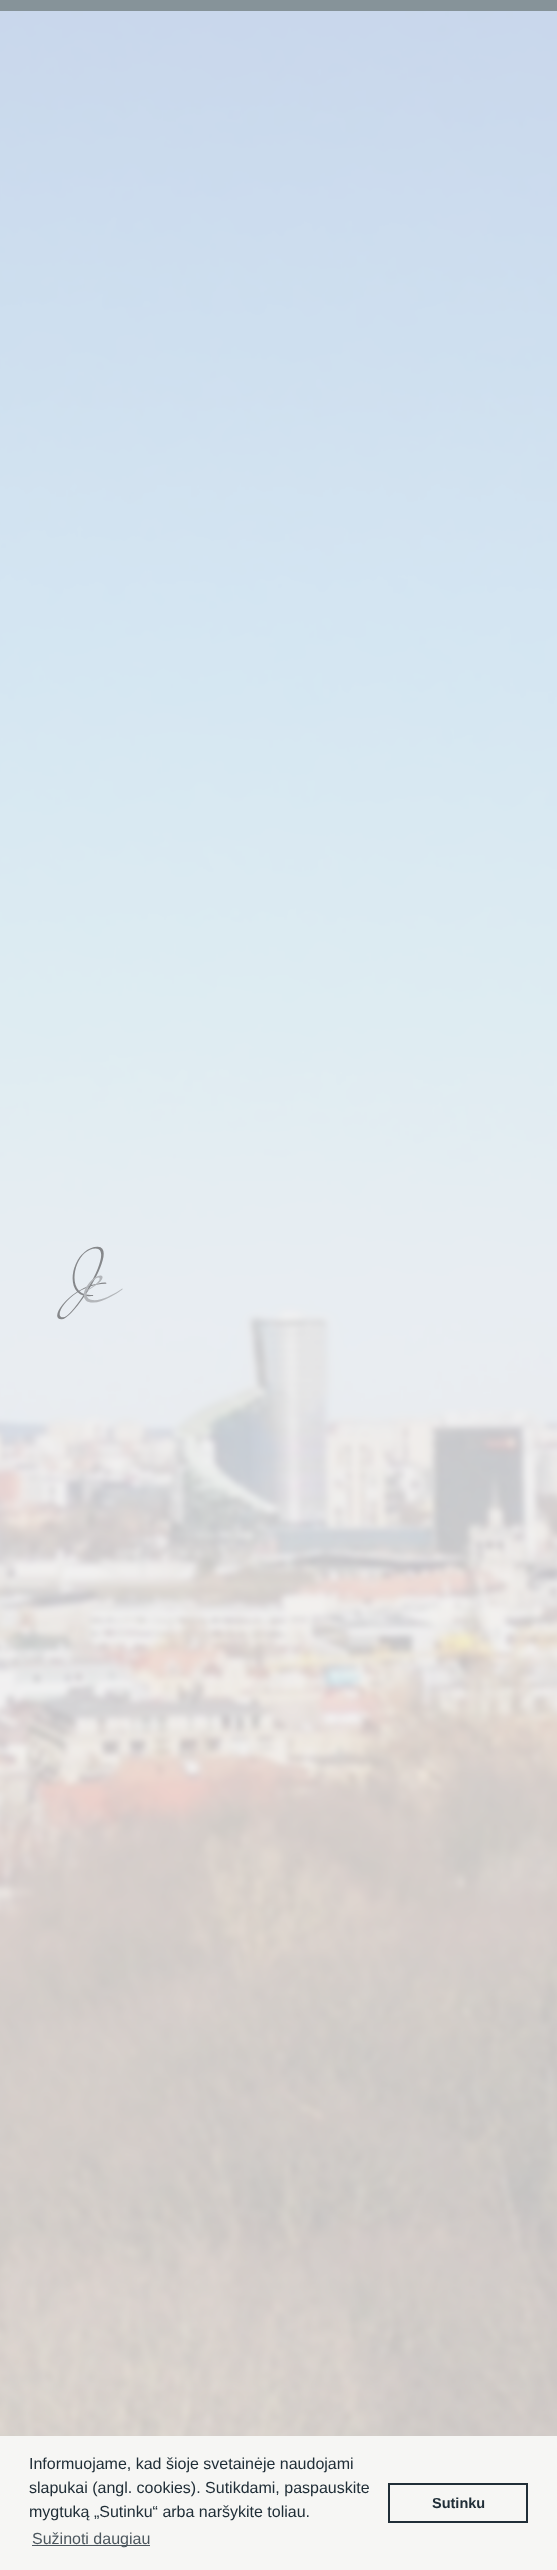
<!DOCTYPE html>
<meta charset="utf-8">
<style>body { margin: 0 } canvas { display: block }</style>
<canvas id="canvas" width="557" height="2570"></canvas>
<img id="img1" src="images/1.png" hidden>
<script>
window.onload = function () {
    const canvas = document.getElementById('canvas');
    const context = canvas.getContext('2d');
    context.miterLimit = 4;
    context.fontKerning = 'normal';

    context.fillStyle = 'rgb(134, 147, 153)';
    context.fillRect(0, 0, 557, 2570);
    context.drawImage(document.getElementById('img1'), 0, 11, 557, 2425);
    context.fillStyle = 'rgb(246, 246, 244)';
    context.fillRect(0, 2436, 557, 134);
    context.fillStyle = 'rgb(75, 86, 93)';
    context.fillRect(32, 2545, 118, 1);
    context.strokeStyle = 'rgb(32, 46, 55)';
    context.lineWidth = 2;
    context.strokeRect(389, 2484, 138, 38);
    context.font = '68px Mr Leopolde';
    context.fillStyle = 'rgb(133, 135, 138)';
    context.fillText('J', 58, 1296);
    context.font = '95px Mr Leopolde';
    context.fillStyle = 'rgb(179, 182, 186)';
    context.fillText('e', 75, 1300);
    context.font = '16px Liberation Sans';
    context.fillStyle = 'rgb(32, 46, 55)';
    context.fillText('Informuojame, kad šioje svetainėje naudojami', 29, 2469);
    context.fillText('slapukai (angl. cookies). Sutikdami, paspauskite', 29, 2493);
    context.fillText('mygtuką „Sutinku“ arba naršykite toliau.', 29, 2517);
    context.fillStyle = 'rgb(75, 86, 93)';
    context.fillText('Sužinoti daugiau', 32, 2544);
    context.font = 'bold 14.5px Liberation Sans';
    context.fillStyle = 'rgb(32, 46, 55)';
    context.fillText('Sutinku', 432, 2508);
};
</script>
